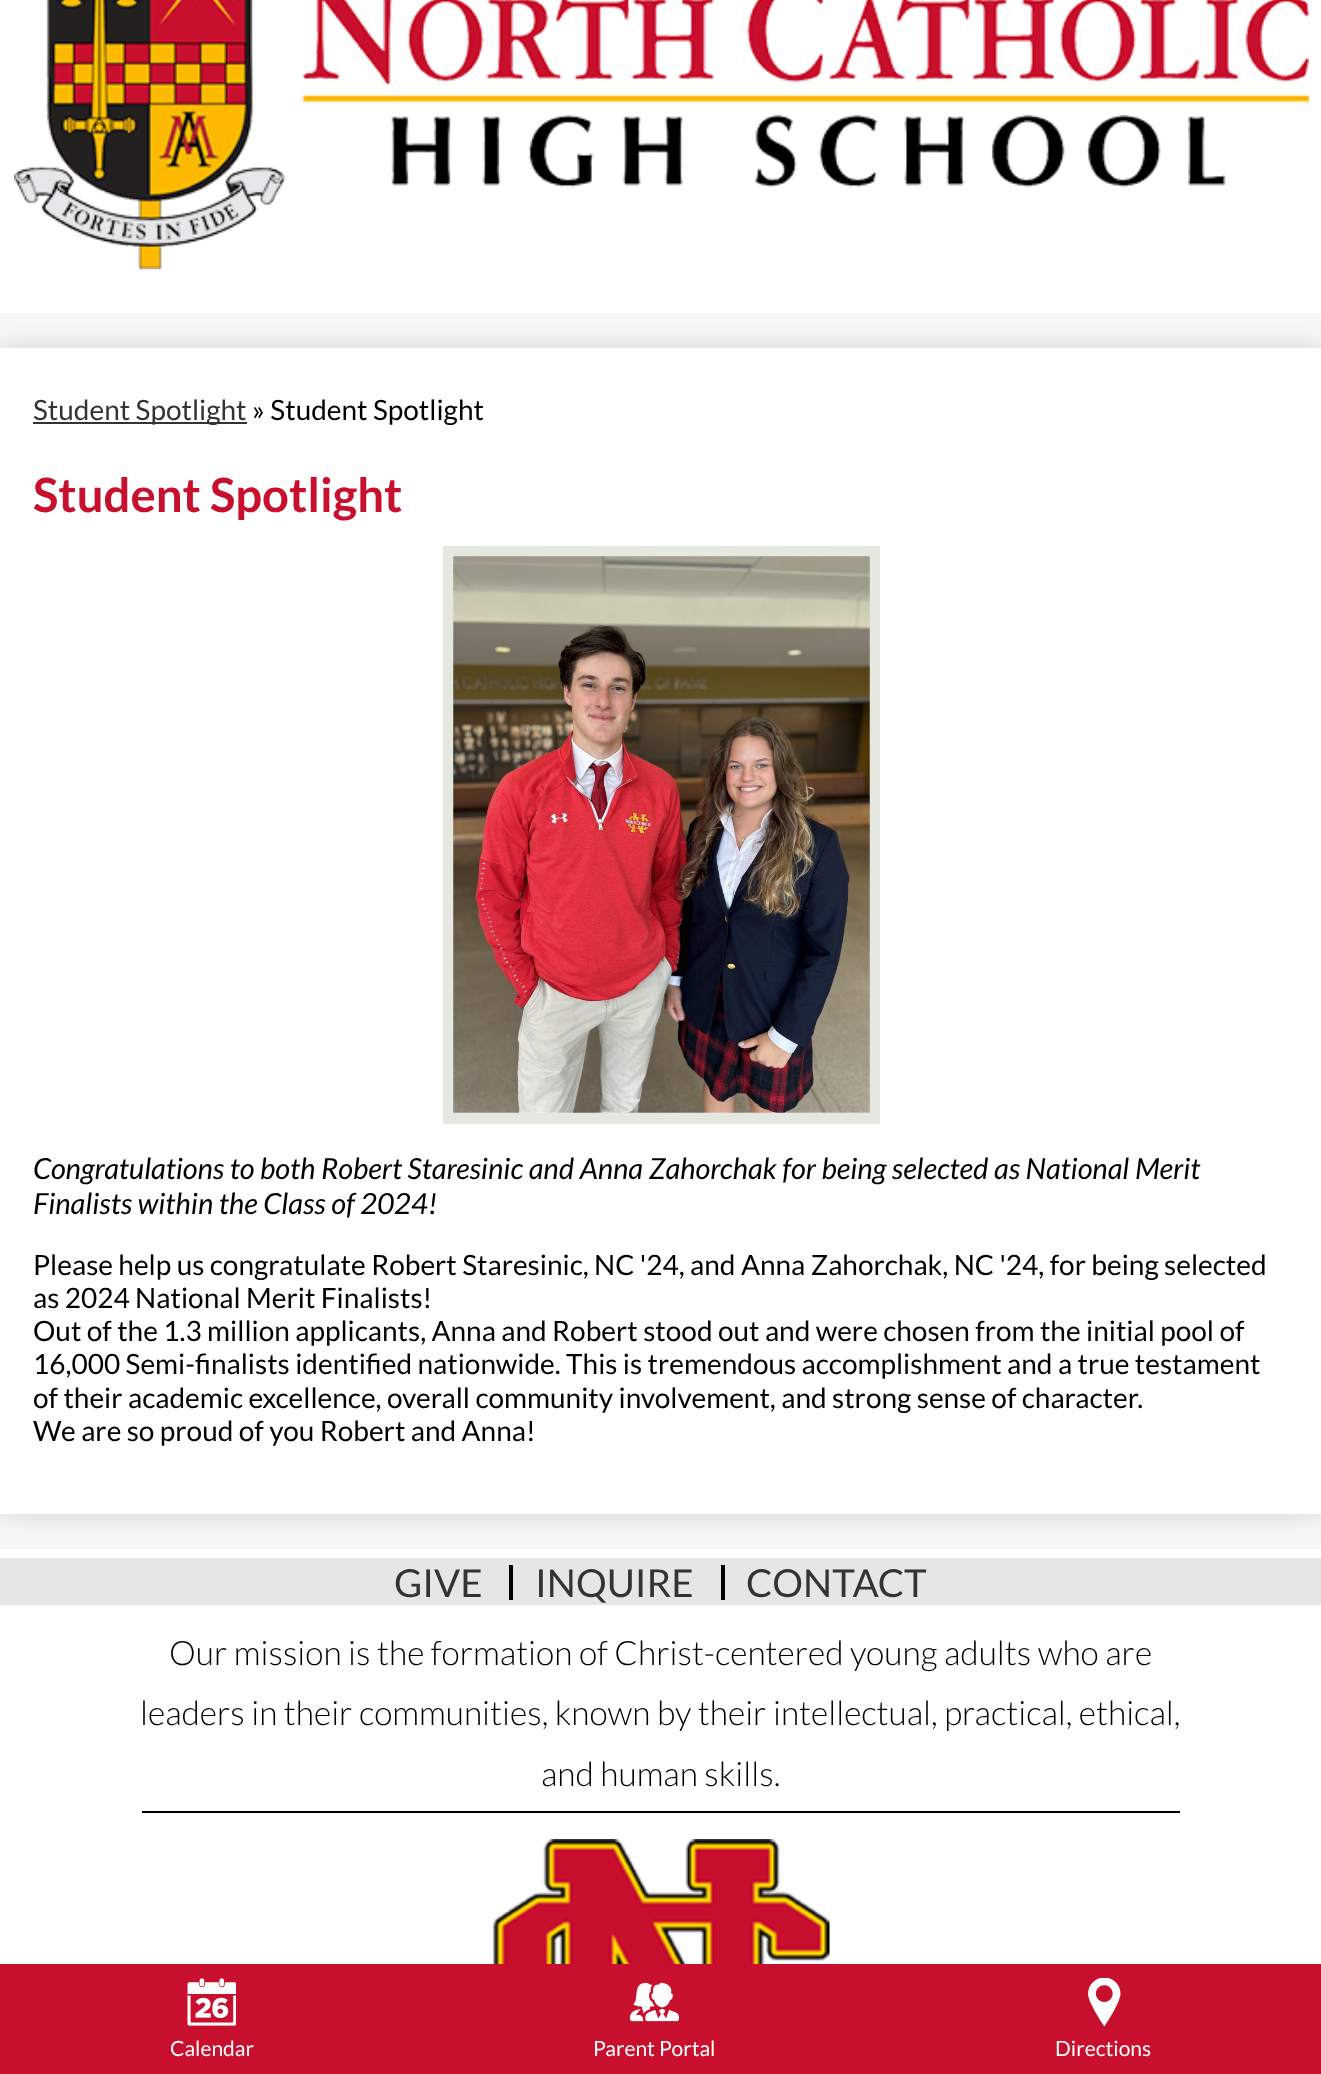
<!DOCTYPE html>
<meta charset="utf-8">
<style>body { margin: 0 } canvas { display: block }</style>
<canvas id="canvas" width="1321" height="2074"></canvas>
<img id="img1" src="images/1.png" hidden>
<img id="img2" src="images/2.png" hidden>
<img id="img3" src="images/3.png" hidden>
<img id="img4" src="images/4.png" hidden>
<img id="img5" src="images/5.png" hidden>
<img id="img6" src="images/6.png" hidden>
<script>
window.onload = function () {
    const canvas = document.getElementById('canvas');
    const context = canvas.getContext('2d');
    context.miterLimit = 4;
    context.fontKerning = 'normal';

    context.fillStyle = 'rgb(247, 247, 247)';
    context.fillRect(0, 0, 1321, 2074);
    context.fillStyle = 'rgba(0, 0, 0, 0.15)';
    context.filter = 'blur(13px)';
    context.beginPath();
    context.rect(0, 348, 1321, 1166);
    context.fill();
    context.filter = 'none';
    context.fillStyle = 'rgb(255, 255, 255)';
    context.fillRect(0, 0, 1321, 313);
    context.drawImage(document.getElementById('img1'), 14, 0, 1295, 270);
    context.fillRect(0, 348, 1321, 1166);
    context.fillStyle = 'rgb(51, 51, 51)';
    context.fillRect(33, 422, 214, 2);
    context.strokeStyle = 'rgb(229, 231, 225)';
    context.lineWidth = 11;
    context.strokeRect(448.5, 551.5, 426, 567);
    context.drawImage(document.getElementById('img2'), 453, 556, 417, 557);
    context.fillStyle = 'rgb(255, 255, 255)';
    context.fillRect(0, 1549, 1321, 415);
    context.fillStyle = 'rgb(230, 230, 230)';
    context.fillRect(0, 1558, 1321, 47);
    context.fillStyle = 'rgb(0, 0, 0)';
    context.fillRect(509, 1565, 4, 35);
    context.fillRect(721, 1565, 4, 35);
    context.fillRect(142, 1811, 1038, 2);
    context.drawImage(document.getElementById('img3'), 493, 1839, 337, 125);
    context.fillStyle = 'rgb(200, 16, 46)';
    context.fillRect(0, 1964, 1321, 110);
    context.drawImage(document.getElementById('img4'), 187, 1978, 49, 48);
    context.drawImage(document.getElementById('img5'), 630, 1982, 49, 40);
    context.drawImage(document.getElementById('img6'), 1088, 1978, 33, 49);
    context.font = '28px Lato';
    context.fillStyle = 'rgb(51, 51, 51)';
    context.fillText('Student Spotlight', 33, 420);
    context.fillStyle = 'rgb(0, 0, 0)';
    context.fillText('» Student Spotlight', 252, 420);
    context.font = 'bold 47.25px Lato';
    context.fillStyle = 'rgb(200, 16, 46)';
    context.fillText('Student Spotlight', 33, 512);
    context.font = 'italic 29.15px Lato';
    context.fillStyle = 'rgb(0, 0, 0)';
    context.fillText('Congratulations to both Robert Staresinic and Anna Zahorchak for being selected as National Merit', 33, 1179);
    context.fillText('Finalists within the Class of 2024!', 33, 1214);
    context.font = '28px Lato';
    context.fillText('Please help us congratulate Robert Staresinic, NC \'24, and Anna Zahorchak, NC \'24, for being selected', 33, 1275);
    context.fillText('as 2024 National Merit Finalists!', 33, 1308);
    context.fillText('Out of the 1.3 million applicants, Anna and Robert stood out and were chosen from the initial pool of', 33, 1341);
    context.fillText('16,000 Semi-finalists identified nationwide. This is tremendous accomplishment and a true testament', 33, 1374);
    context.fillText('of their academic excellence, overall community involvement, and strong sense of character.', 33, 1408);
    context.fillText('We are so proud of you Robert and Anna!', 33, 1441);
    context.font = '38.5px Lato';
    context.fillStyle = 'rgb(51, 51, 51)';
    context.fillText('GIVE', 394, 1597);
    context.fillText('INQUIRE', 535, 1597);
    context.fillText('CONTACT', 746, 1597);
    context.font = '300 33.6px Lato';
    context.fillStyle = 'rgb(0, 0, 0)';
    context.fillText('Our mission is the formation of Christ-centered young adults who are', 169, 1665);
    context.fillText('leaders in their communities, known by their intellectual, practical, ethical,', 140, 1725);
    context.fillText('and human skills.', 541, 1786);
    context.font = '21px Lato';
    context.fillStyle = 'rgb(255, 255, 255)';
    context.fillText('Calendar', 170, 2056);
    context.fillText('Parent Portal', 593, 2056);
    context.fillText('Directions', 1055, 2056);
};
</script>
